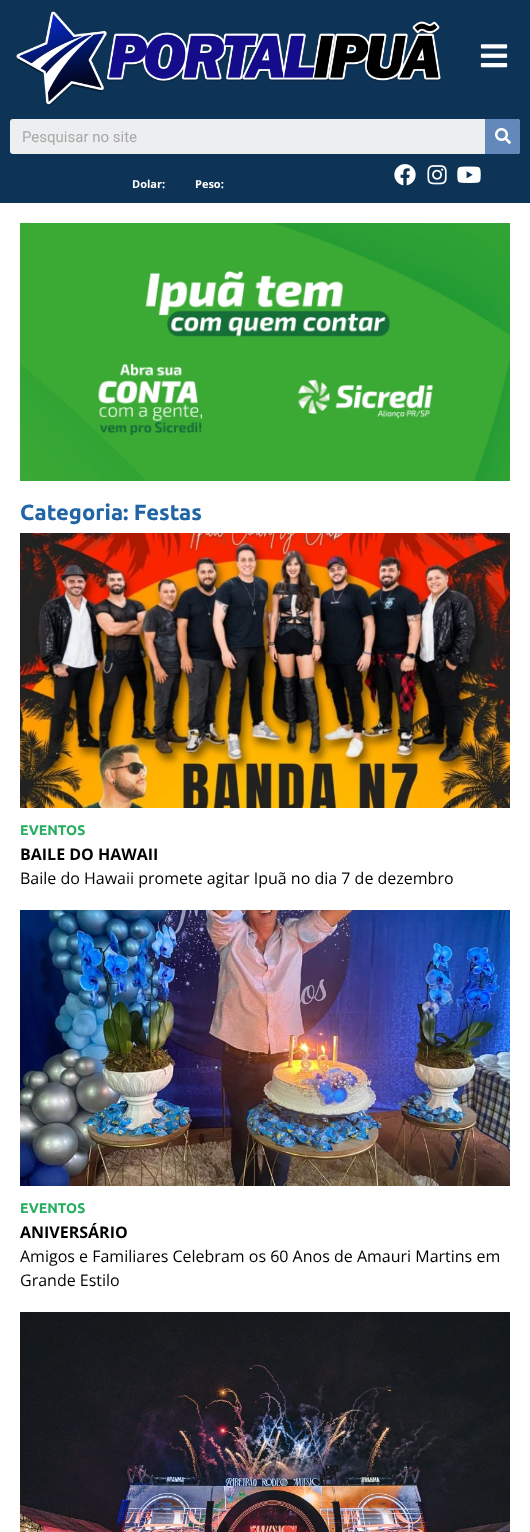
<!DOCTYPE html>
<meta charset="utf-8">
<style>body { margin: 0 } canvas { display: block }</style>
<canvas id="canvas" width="530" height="1532"></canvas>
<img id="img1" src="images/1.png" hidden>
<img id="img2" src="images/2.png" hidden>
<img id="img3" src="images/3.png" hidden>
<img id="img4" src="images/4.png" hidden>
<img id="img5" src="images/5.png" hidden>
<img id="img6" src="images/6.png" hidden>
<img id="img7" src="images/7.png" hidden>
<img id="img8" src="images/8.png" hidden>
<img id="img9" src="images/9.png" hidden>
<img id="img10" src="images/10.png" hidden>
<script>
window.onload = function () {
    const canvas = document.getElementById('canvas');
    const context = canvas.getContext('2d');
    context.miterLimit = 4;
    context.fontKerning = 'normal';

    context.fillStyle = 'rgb(255, 255, 255)';
    context.fillRect(0, 0, 530, 1532);
    context.fillStyle = 'rgb(13, 51, 87)';
    context.fillRect(0, 0, 530, 203);
    context.drawImage(document.getElementById('img1'), 16, 11, 425, 96);
    context.drawImage(document.getElementById('img2'), 480, 44, 28, 24);
    context.fillStyle = 'rgb(236, 238, 239)';
    context.beginPath();
    context.roundRect(10, 119, 510, 35, 3);
    context.fill();
    context.fillStyle = 'rgb(98, 137, 185)';
    context.beginPath();
    context.roundRect(485, 119, 35, 35, [0, 3, 3, 0]);
    context.fill();
    context.drawImage(document.getElementById('img3'), 495, 128, 16, 16);
    context.drawImage(document.getElementById('img4'), 394, 164, 22, 22);
    context.drawImage(document.getElementById('img5'), 427, 165, 20, 20);
    context.drawImage(document.getElementById('img6'), 457, 166, 24, 17);
    context.drawImage(document.getElementById('img7'), 20, 223, 490, 258);
    context.drawImage(document.getElementById('img8'), 20, 533, 490, 275);
    context.drawImage(document.getElementById('img9'), 20, 910, 490, 276);
    context.drawImage(document.getElementById('img10'), 20, 1312, 490, 220);
    context.font = '15px Roboto';
    context.fillStyle = 'rgb(168, 168, 169)';
    context.fillText('Pesquisar no site', 22, 142);
    context.font = 'bold 11px Open Sans';
    context.fillStyle = 'rgb(255, 255, 255)';
    context.fillText('Dolar:', 132, 188);
    context.fillText('Peso:', 195, 188);
    context.font = 'bold 22px Ubuntu';
    context.fillStyle = 'rgb(33, 101, 166)';
    context.fillText('Categoria: Festas', 20, 520);
    context.font = 'bold 14px Ubuntu';
    context.fillStyle = 'rgb(39, 174, 96)';
    context.fillText('EVENTOS', 20, 835);
    context.font = 'bold 16px Open Sans';
    context.fillStyle = 'rgb(0, 0, 0)';
    context.fillText('BAILE DO HAWAII', 20, 860);
    context.font = '16px Open Sans';
    context.fillText('Baile do Hawaii promete agitar Ipuã no dia 7 de dezembro', 20, 884);
    context.font = 'bold 14px Ubuntu';
    context.fillStyle = 'rgb(39, 174, 96)';
    context.fillText('EVENTOS', 20, 1213);
    context.font = 'bold 16px Open Sans';
    context.fillStyle = 'rgb(0, 0, 0)';
    context.fillText('ANIVERSÁRIO', 20, 1238);
    context.font = '16px Open Sans';
    context.fillText('Amigos e Familiares Celebram os 60 Anos de Amauri Martins em', 20, 1262);
    context.fillText('Grande Estilo', 20, 1286);
};
</script>
